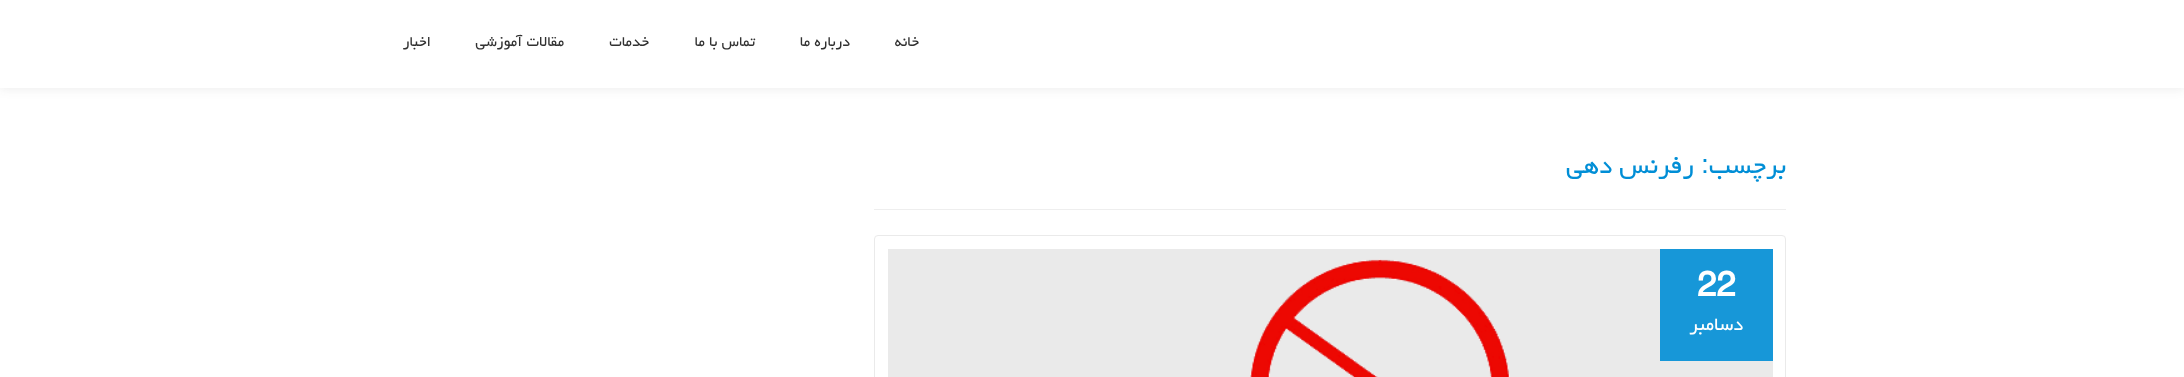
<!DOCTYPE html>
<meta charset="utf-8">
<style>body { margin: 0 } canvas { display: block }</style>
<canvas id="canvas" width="2184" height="377"></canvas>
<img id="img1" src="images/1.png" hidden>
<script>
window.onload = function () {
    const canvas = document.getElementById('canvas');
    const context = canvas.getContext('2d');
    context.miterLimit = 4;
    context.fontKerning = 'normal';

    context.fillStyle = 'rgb(255, 255, 255)';
    context.fillRect(0, 0, 2184, 377);
    context.fillStyle = 'rgba(50, 50, 50, 0.08)';
    context.filter = 'blur(5px)';
    context.beginPath();
    context.rect(0, 3, 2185, 87);
    context.fill();
    context.filter = 'none';
    context.fillStyle = 'rgb(255, 255, 255)';
    context.fillRect(0, 0, 2184, 88);
    context.fillStyle = 'rgb(238, 238, 238)';
    context.fillRect(874, 209, 912, 1);
    context.beginPath();
    context.roundRect(874.5, 235.5, 911, 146, 3.5);
    context.strokeStyle = 'rgb(234, 234, 234)';
    context.stroke();
    context.fillStyle = 'rgb(234, 234, 234)';
    context.fillRect(888, 249, 885, 128);
    context.fillStyle = 'rgb(23, 151, 216)';
    context.fillRect(1660, 249, 113, 112);
    context.drawImage(document.getElementById('img1'), 1250, 259, 260, 118);
    context.direction = 'rtl';
    context.font = '17.5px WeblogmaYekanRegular';
    context.fillStyle = 'rgb(49, 49, 49)';
    context.fillText('خانه', 919, 46);
    context.fillText('درباره ما', 850, 46);
    context.fillText('تماس با ما', 755, 46);
    context.fillText('خدمات', 649, 46);
    context.fillText('مقالات آموزشی', 564, 46);
    context.fillText('اخبار', 431, 46);
    context.font = '30px WeblogmaYekanRegular';
    context.fillStyle = 'rgb(0, 142, 214)';
    context.fillText('برچسب:', 1786, 173);
    context.fillText('رفرنس دهی', 1694, 173);
    context.direction = 'ltr';
    context.font = 'bold 39px WeblogmaYekanRegular';
    context.fillStyle = 'rgb(255, 255, 255)';
    context.fillText('22', 1697, 296);
    context.direction = 'rtl';
    context.font = '22.5px WeblogmaYekanRegular';
    context.fillText('دسامبر', 1743, 330);
};
</script>
